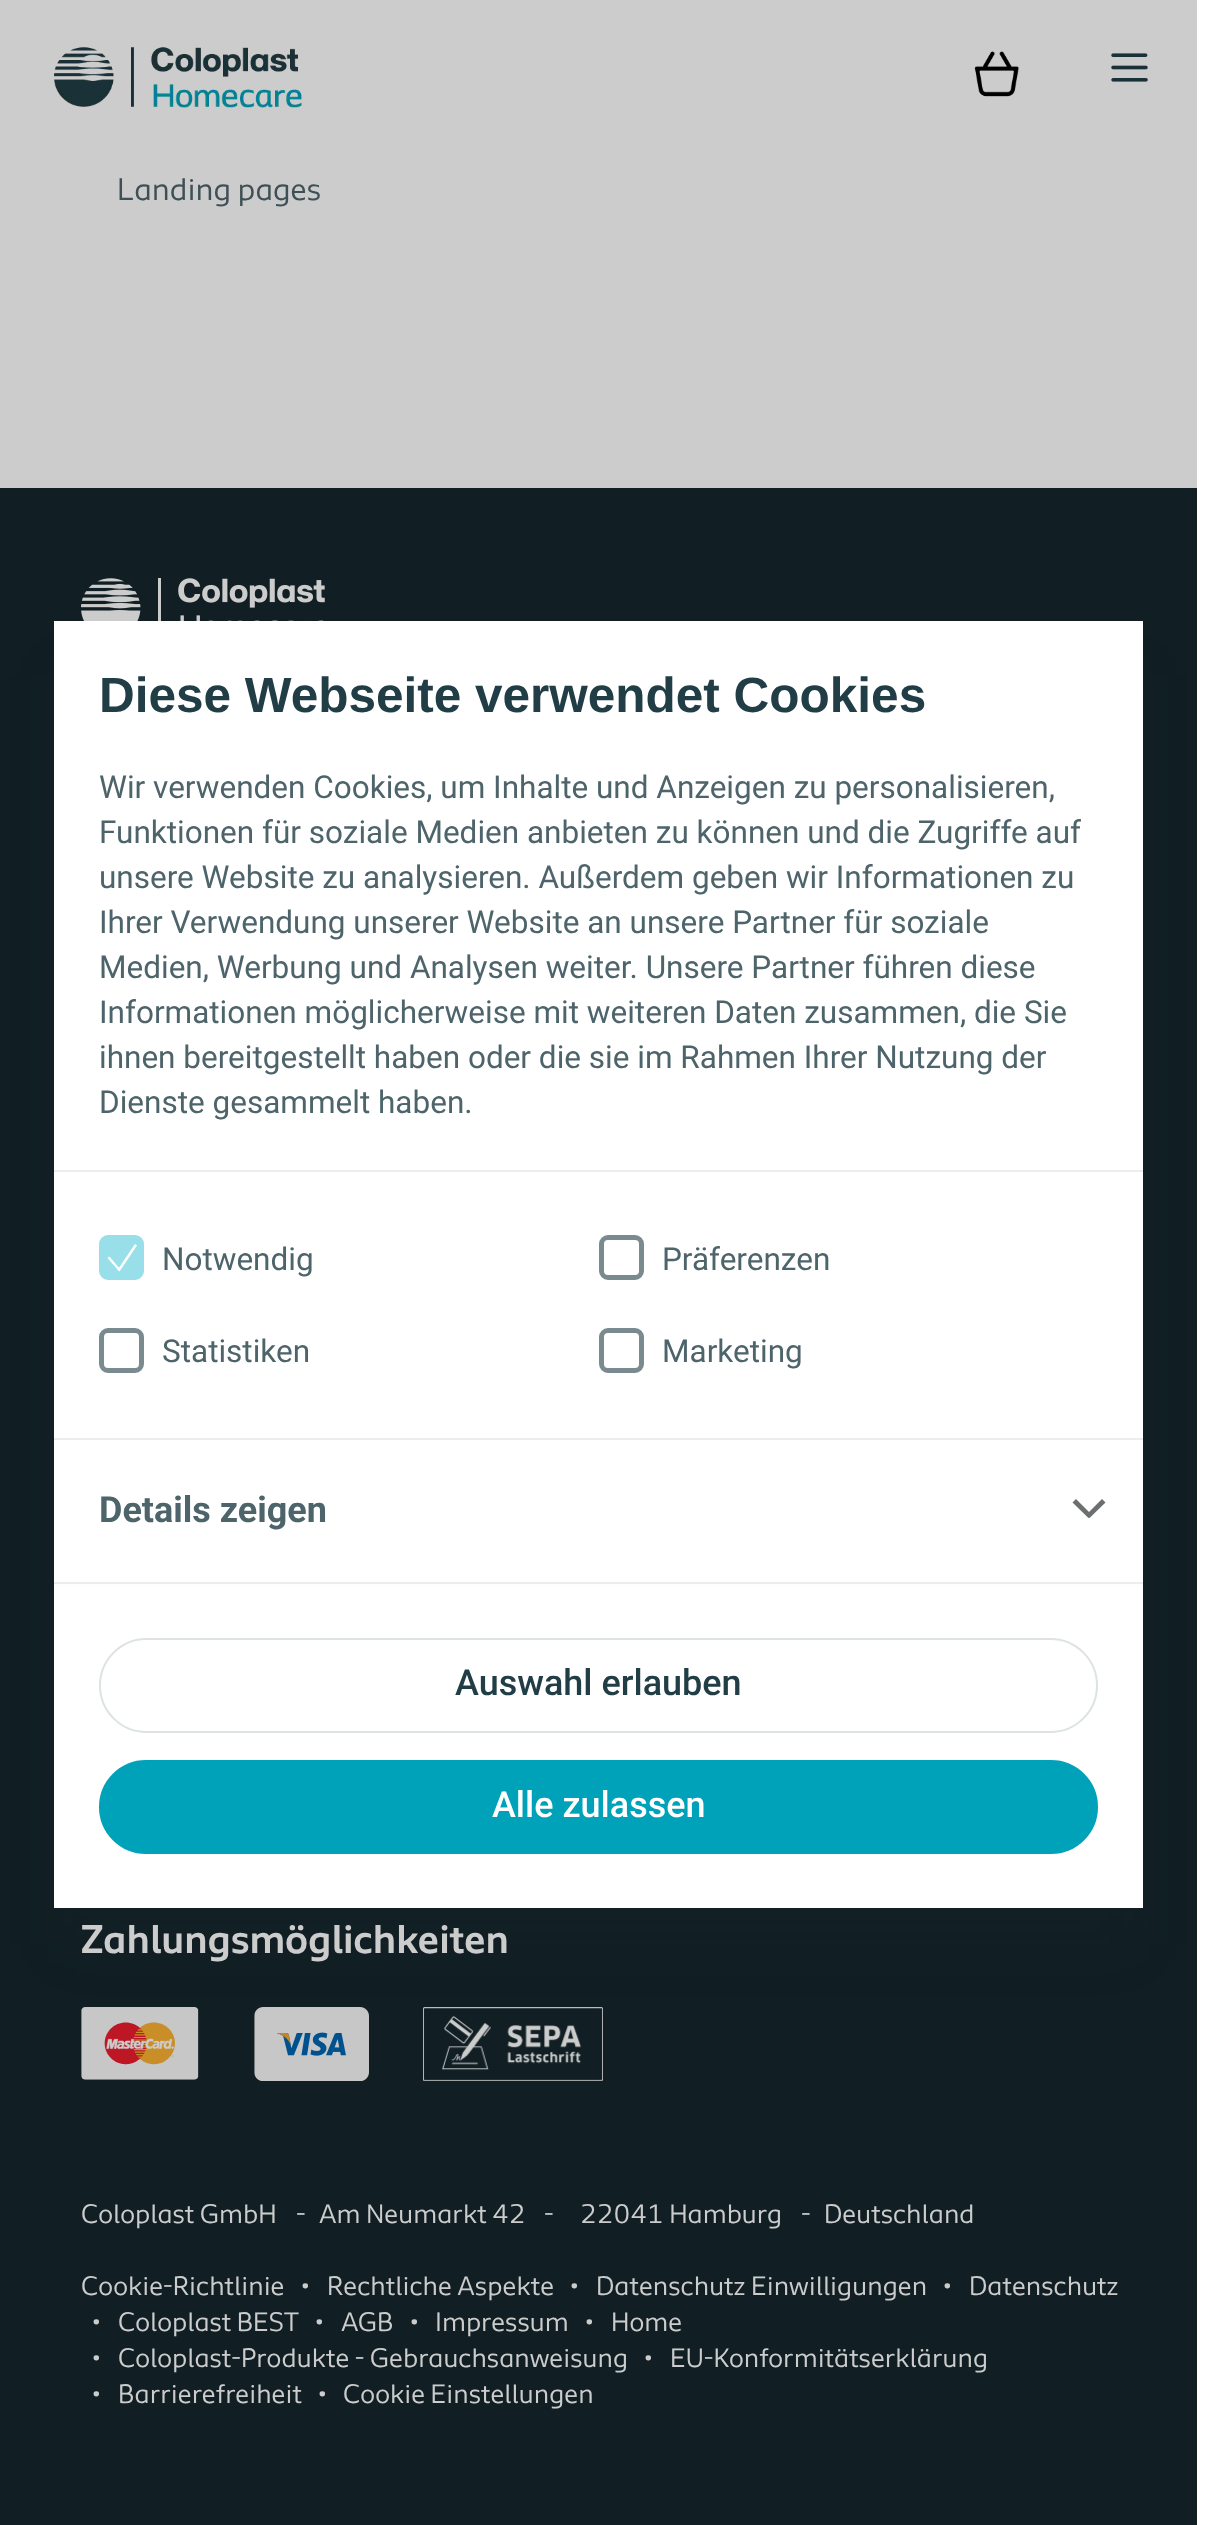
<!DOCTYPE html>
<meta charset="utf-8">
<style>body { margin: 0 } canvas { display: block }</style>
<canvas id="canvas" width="1229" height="2525"></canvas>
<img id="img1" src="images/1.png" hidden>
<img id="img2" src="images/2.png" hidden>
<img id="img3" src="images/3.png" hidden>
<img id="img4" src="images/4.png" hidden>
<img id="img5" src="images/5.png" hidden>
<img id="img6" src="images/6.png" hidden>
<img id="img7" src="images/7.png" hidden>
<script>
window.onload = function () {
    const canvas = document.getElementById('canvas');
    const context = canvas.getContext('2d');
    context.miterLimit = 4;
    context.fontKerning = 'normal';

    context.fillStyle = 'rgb(255, 255, 255)';
    context.fillRect(0, 0, 1229, 2525);
    context.fillStyle = 'rgb(204, 204, 204)';
    context.fillRect(0, 0, 1197, 488);
    context.drawImage(document.getElementById('img1'), 54, 47, 248, 61);
    context.drawImage(document.getElementById('img2'), 974, 51, 45, 46);
    context.drawImage(document.getElementById('img3'), 1111, 53, 37, 29);
    context.fillStyle = 'rgb(17, 31, 36)';
    context.fillRect(0, 488, 1197, 2037);
    context.drawImage(document.getElementById('img4'), 81, 578, 244, 43);
    context.drawImage(document.getElementById('img5'), 81, 2007, 118, 73);
    context.drawImage(document.getElementById('img6'), 254, 2007, 115, 74);
    context.drawImage(document.getElementById('img7'), 423, 2007, 180, 74);
    context.fillStyle = 'rgba(21, 39, 45, 0.12)';
    context.filter = 'blur(27px)';
    context.beginPath();
    context.rect(63, 675, 1071, 1269);
    context.fill();
    context.filter = 'none';
    context.fillStyle = 'rgb(255, 255, 255)';
    context.fillRect(54, 621, 1089, 961);
    context.fillRect(54, 1586, 1089, 322);
    context.fillStyle = 'rgb(237, 237, 237)';
    context.fillRect(54, 1582, 1089, 2);
    context.beginPath();
    context.roundRect(100, 1639, 997, 93, 46.5);
    context.strokeStyle = 'rgb(221, 226, 228)';
    context.lineWidth = 2;
    context.stroke();
    context.fillStyle = 'rgb(0, 162, 186)';
    context.beginPath();
    context.roundRect(100, 1761, 997, 92, 46);
    context.fill();
    context.strokeStyle = 'rgb(0, 162, 186)';
    context.stroke();
    context.fillStyle = 'rgb(237, 237, 237)';
    context.fillRect(54, 1170, 1089, 2);
    context.fillStyle = 'rgb(153, 223, 234)';
    context.beginPath();
    context.roundRect(101.5, 1237.5, 40, 40, 6.5);
    context.fill();
    context.strokeStyle = 'rgb(153, 223, 234)';
    context.lineWidth = 5;
    context.stroke();
    context.fillStyle = 'rgb(255, 255, 255)';
    context.beginPath();
    context.moveTo(135, 1244);
    context.lineTo(137, 1245.5);
    context.lineTo(119.5, 1271.5);
    context.lineTo(117.5, 1270);
    context.closePath();
    context.fill();
    context.beginPath();
    context.moveTo(107.5, 1258);
    context.lineTo(109.5, 1256.5);
    context.lineTo(119.5, 1268.5);
    context.lineTo(118, 1270);
    context.closePath();
    context.fill();
    context.beginPath();
    context.roundRect(601.5, 1237.5, 40, 40, 6.5);
    context.strokeStyle = 'rgb(122, 139, 144)';
    context.stroke();
    context.beginPath();
    context.roundRect(101.5, 1330.5, 40, 40, 6.5);
    context.stroke();
    context.beginPath();
    context.roundRect(601.5, 1330.5, 40, 40, 6.5);
    context.stroke();
    context.fillStyle = 'rgb(237, 237, 237)';
    context.fillRect(54, 1438, 1089, 2);
    context.fillStyle = 'rgb(254, 254, 254)';
    context.fillRect(54, 1584, 1089, 2);
    context.fillStyle = 'rgb(108, 111, 112)';
    context.beginPath();
    context.moveTo(1072.5, 1502.5);
    context.lineTo(1076, 1499);
    context.lineTo(1092, 1515);
    context.lineTo(1088.5, 1518);
    context.closePath();
    context.fill();
    context.beginPath();
    context.moveTo(1102, 1499);
    context.lineTo(1105.5, 1502.5);
    context.lineTo(1089.5, 1518);
    context.lineTo(1086, 1515);
    context.closePath();
    context.fill();
    context.font = '31.5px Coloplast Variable';
    context.fillStyle = 'rgb(62, 80, 86)';
    context.fillText('Landing pages', 117, 200);
    context.font = 'bold 49.5px Liberation Sans';
    context.fillStyle = 'rgb(33, 61, 70)';
    context.fillText('Diese Webseite verwendet Cookies', 99, 712);
    context.font = '31.5px Roboto';
    context.fillStyle = 'rgb(77, 100, 107)';
    context.fillText('Wir verwenden Cookies, um Inhalte und Anzeigen zu personalisieren,', 99, 798);
    context.fillText('Funktionen für soziale Medien anbieten zu können und die Zugriffe auf', 99, 843);
    context.fillText('unsere Website zu analysieren. Außerdem geben wir Informationen zu', 99, 888);
    context.fillText('Ihrer Verwendung unserer Website an unsere Partner für soziale', 99, 933);
    context.fillText('Medien, Werbung und Analysen weiter. Unsere Partner führen diese', 99, 978);
    context.fillText('Informationen möglicherweise mit weiteren Daten zusammen, die Sie', 99, 1023);
    context.fillText('ihnen bereitgestellt haben oder die sie im Rahmen Ihrer Nutzung der', 99, 1068);
    context.fillText('Dienste gesammelt haben.', 99, 1113);
    context.font = '500 36px Roboto';
    context.fillStyle = 'rgb(33, 61, 70)';
    context.fillText('Auswahl erlauben', 455, 1695);
    context.fillStyle = 'rgb(255, 255, 255)';
    context.fillText('Alle zulassen', 492, 1817);
    context.font = '31.5px Roboto';
    context.fillStyle = 'rgb(77, 100, 107)';
    context.fillText('Notwendig', 162, 1270);
    context.fillText('Präferenzen', 662, 1270);
    context.fillText('Statistiken', 162, 1362);
    context.fillText('Marketing', 662, 1362);
    context.font = 'bold 36px Roboto';
    context.fillText('Details zeigen', 99, 1522);
    context.font = '600 40.5px Coloplast Variable';
    context.fillStyle = 'rgb(204, 204, 204)';
    context.fillText('Zahlungsmöglichkeiten', 81, 1953);
    context.font = '27px Coloplast Variable';
    context.fillText('Coloplast GmbH', 81, 2223);
    context.fillText('-', 296, 2223);
    context.fillText('Am Neumarkt 42', 319, 2223);
    context.fillText('-', 544, 2223);
    context.fillText('22041 Hamburg', 580, 2223);
    context.fillText('-', 801, 2223);
    context.fillText('Deutschland', 824, 2223);
    context.fillText('Cookie-Richtlinie', 81, 2295);
    context.fillText('•', 301, 2295);
    context.fillText('Rechtliche Aspekte', 327, 2295);
    context.fillText('•', 570, 2295);
    context.fillText('Datenschutz Einwilligungen', 596, 2295);
    context.fillText('•', 943, 2295);
    context.fillText('Datenschutz', 969, 2295);
    context.fillText('•', 92, 2331);
    context.fillText('Coloplast BEST', 118, 2331);
    context.fillText('•', 315, 2331);
    context.fillText('AGB', 341, 2331);
    context.fillText('•', 410, 2331);
    context.fillText('Impressum', 435, 2331);
    context.fillText('•', 585, 2331);
    context.fillText('Home', 611, 2331);
    context.fillText('•', 92, 2367);
    context.fillText('Coloplast-Produkte - Gebrauchsanweisung', 118, 2367);
    context.fillText('•', 644, 2367);
    context.fillText('EU-Konformitätserklärung', 670, 2367);
    context.fillText('•', 92, 2403);
    context.fillText('Barrierefreiheit', 118, 2403);
    context.fillText('•', 318, 2403);
    context.fillText('Cookie Einstellungen', 343, 2403);
};
</script>
